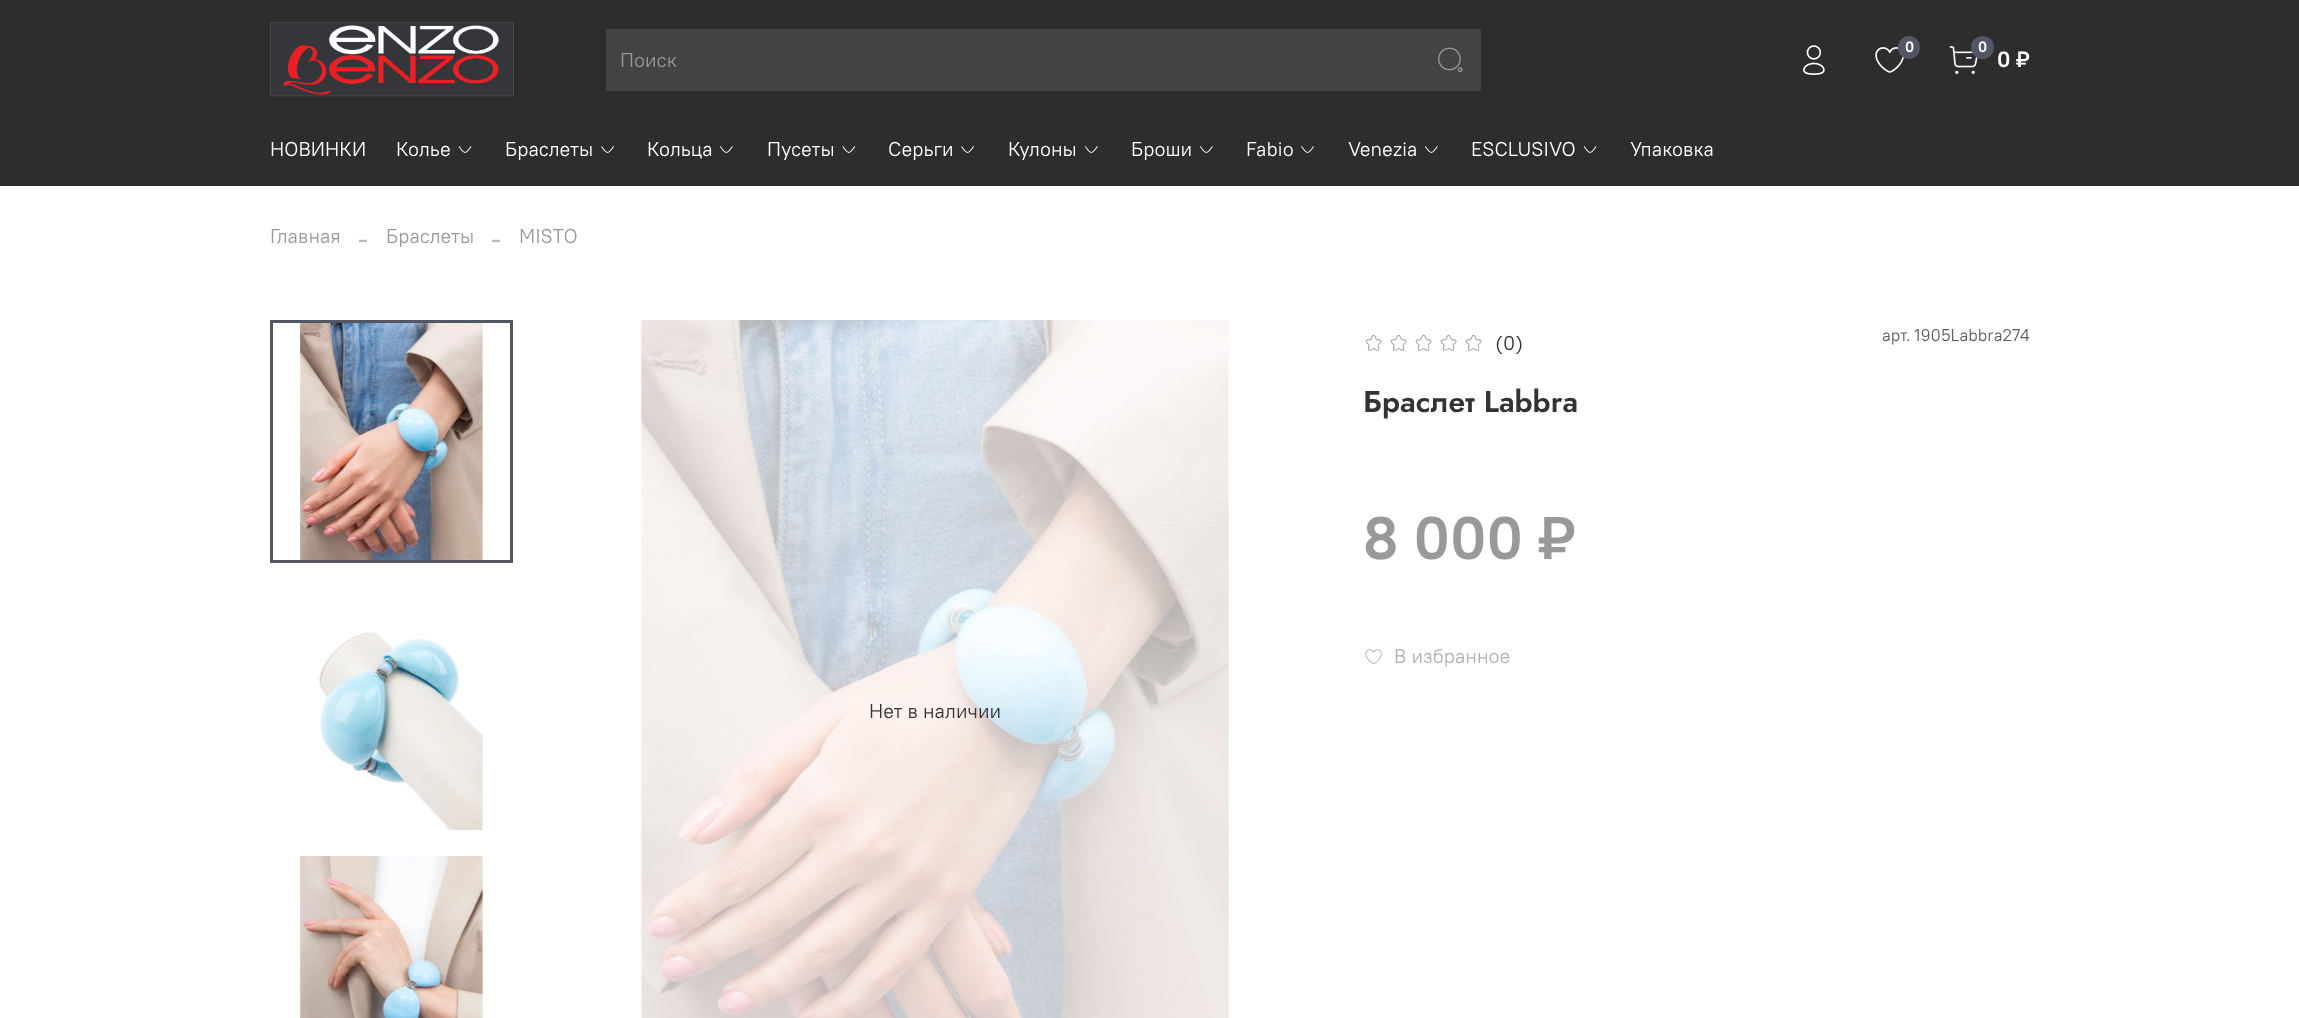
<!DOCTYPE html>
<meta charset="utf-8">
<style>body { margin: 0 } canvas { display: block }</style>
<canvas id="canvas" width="2299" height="1018"></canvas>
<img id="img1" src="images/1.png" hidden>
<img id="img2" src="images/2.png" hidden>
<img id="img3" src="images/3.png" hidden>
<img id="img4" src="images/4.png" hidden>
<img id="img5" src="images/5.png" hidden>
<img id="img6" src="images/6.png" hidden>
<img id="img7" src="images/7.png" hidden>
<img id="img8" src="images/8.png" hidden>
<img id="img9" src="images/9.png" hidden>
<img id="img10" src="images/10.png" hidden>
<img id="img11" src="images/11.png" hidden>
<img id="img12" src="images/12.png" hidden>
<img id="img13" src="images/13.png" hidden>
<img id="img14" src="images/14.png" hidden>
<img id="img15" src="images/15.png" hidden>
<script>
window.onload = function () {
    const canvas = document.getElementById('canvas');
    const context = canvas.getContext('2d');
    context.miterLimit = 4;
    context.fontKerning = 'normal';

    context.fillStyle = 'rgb(255, 255, 255)';
    context.fillRect(0, 0, 2299, 1018);
    context.fillStyle = 'rgb(45, 45, 45)';
    context.fillRect(0, 0, 2299, 186);
    context.drawImage(document.getElementById('img1'), 270, 22, 244, 75);
    context.fillStyle = 'rgb(67, 67, 67)';
    context.fillRect(606, 29, 875, 62);
    context.drawImage(document.getElementById('img2'), 1438, 47, 25, 26);
    context.drawImage(document.getElementById('img3'), 1803, 45, 22, 30);
    context.drawImage(document.getElementById('img4'), 1875, 47, 29, 26);
    context.fillStyle = 'rgb(82, 86, 101)';
    context.beginPath();
    context.roundRect(1898, 36, 22, 23, 11);
    context.fill();
    context.drawImage(document.getElementById('img5'), 1949, 46, 29, 28);
    context.beginPath();
    context.arc(1982.5, 47.5, 11.5, 0, 2 * Math.PI);
    context.fill();
    context.drawImage(document.getElementById('img6'), 458, 146, 14, 7);
    context.drawImage(document.getElementById('img7'), 601, 146, 13, 7);
    context.drawImage(document.getElementById('img8'), 720, 146, 13, 7);
    context.drawImage(document.getElementById('img9'), 842, 146, 14, 7);
    context.drawImage(document.getElementById('img7'), 961, 146, 13, 7);
    context.drawImage(document.getElementById('img8'), 1085, 146, 13, 7);
    context.drawImage(document.getElementById('img8'), 1200, 146, 13, 7);
    context.drawImage(document.getElementById('img7'), 1301, 146, 13, 7);
    context.drawImage(document.getElementById('img8'), 1425, 146, 13, 7);
    context.drawImage(document.getElementById('img6'), 1583, 146, 14, 7);
    context.drawImage(document.getElementById('img10'), 1365, 334, 17, 17);
    context.drawImage(document.getElementById('img10'), 1390, 334, 17, 17);
    context.drawImage(document.getElementById('img10'), 1415, 334, 17, 17);
    context.drawImage(document.getElementById('img10'), 1440, 334, 17, 17);
    context.drawImage(document.getElementById('img10'), 1465, 334, 17, 17);
    context.drawImage(document.getElementById('img11'), 1365, 649, 17, 15);
    context.drawImage(document.getElementById('img12'), 300, 323, 183, 237);
    context.strokeStyle = 'rgb(82, 86, 101)';
    context.lineWidth = 3;
    context.strokeRect(271.5, 321.5, 240, 240);
    context.drawImage(document.getElementById('img13'), 319, 632, 164, 198);
    context.drawImage(document.getElementById('img14'), 300, 856, 183, 162);
    context.drawImage(document.getElementById('img15'), 640, 320, 589, 698);
    context.font = '20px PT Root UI';
    context.fillStyle = 'rgb(153, 153, 153)';
    context.fillText('Поиск', 620, 67);
    context.font = 'bold 15px PT Root UI';
    context.fillStyle = 'rgb(255, 255, 255)';
    context.fillText('0', 1905, 52);
    context.fillText('0', 1978, 52);
    context.font = 'bold 22px PT Root UI';
    context.fillText('0 ₽', 1997, 67);
    context.font = '20px PT Root UI';
    context.fillText('НОВИНКИ', 270, 156);
    context.fillText('Колье', 396, 156);
    context.fillText('Браслеты', 505, 156);
    context.fillText('Кольца', 647, 156);
    context.fillText('Пусеты', 767, 156);
    context.fillText('Серьги', 888, 156);
    context.fillText('Кулоны', 1008, 156);
    context.fillText('Броши', 1131, 156);
    context.fillText('Fabio', 1246, 156);
    context.fillText('Venezia', 1348, 156);
    context.fillText('ESCLUSIVO', 1471, 156);
    context.fillText('Упаковка', 1630, 156);
    context.fillStyle = 'rgb(153, 153, 153)';
    context.fillText('Главная', 270, 243);
    context.font = '30px Liberation Serif';
    context.fillStyle = 'rgb(184, 184, 184)';
    context.fillText('-', 358, 248);
    context.font = '20px PT Root UI';
    context.fillStyle = 'rgb(153, 153, 153)';
    context.fillText('Браслеты', 386, 243);
    context.font = '30px Liberation Serif';
    context.fillStyle = 'rgb(184, 184, 184)';
    context.fillText('-', 491, 248);
    context.font = '20px PT Root UI';
    context.fillStyle = 'rgb(153, 153, 153)';
    context.fillText('MISTO', 519, 243);
    context.fillStyle = 'rgb(51, 51, 51)';
    context.fillText('(0)', 1495, 350);
    context.font = '17px PT Root UI';
    context.fillStyle = 'rgb(92, 92, 92)';
    context.fillText('арт. 1905Labbra274', 1882, 341);
    context.font = '600 30px Jost';
    context.fillStyle = 'rgb(51, 51, 51)';
    context.fillText('Браслет Labbra', 1363, 412);
    context.font = 'bold 60px PT Root UI';
    context.fillStyle = 'rgb(153, 153, 153)';
    context.fillText('8 000 ₽', 1363, 559);
    context.font = '20px PT Root UI';
    context.fillStyle = 'rgb(176, 176, 177)';
    context.fillText('В избранное', 1394, 663);
    context.fillStyle = 'rgb(51, 51, 51)';
    context.fillText('Нет в наличии', 869, 718);
};
</script>
